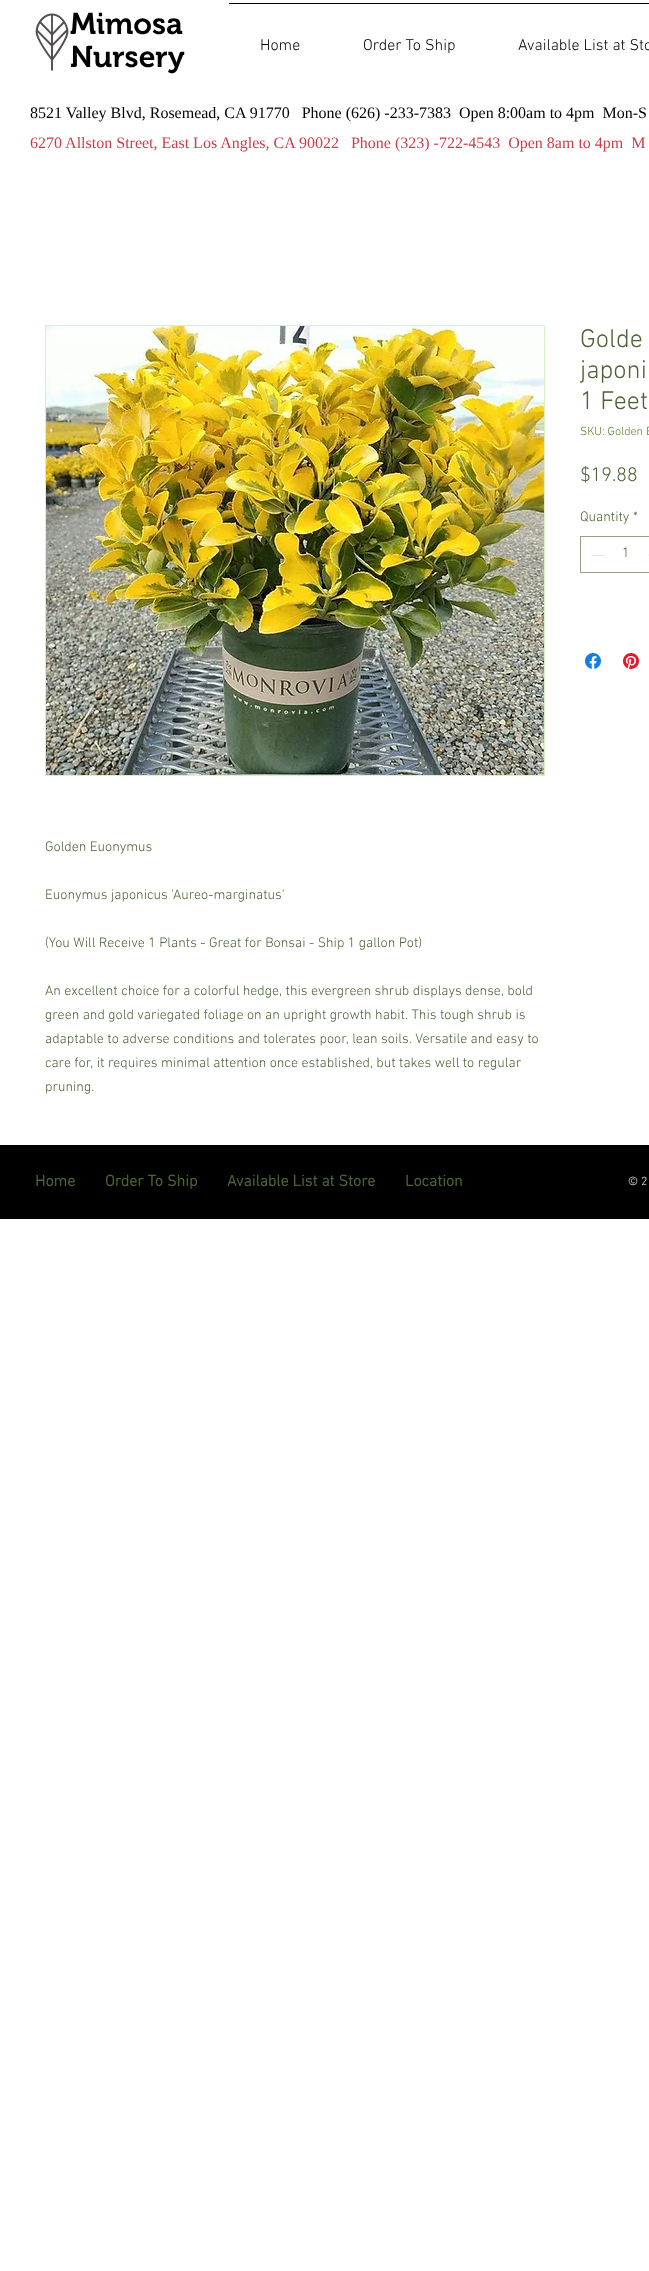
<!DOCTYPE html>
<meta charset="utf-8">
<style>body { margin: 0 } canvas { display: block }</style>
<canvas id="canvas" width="649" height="2271"></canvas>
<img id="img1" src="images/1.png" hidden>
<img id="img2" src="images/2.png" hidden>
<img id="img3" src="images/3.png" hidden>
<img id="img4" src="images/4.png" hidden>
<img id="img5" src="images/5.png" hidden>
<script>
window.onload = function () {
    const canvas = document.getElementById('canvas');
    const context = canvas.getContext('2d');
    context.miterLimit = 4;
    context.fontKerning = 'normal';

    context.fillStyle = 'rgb(255, 255, 255)';
    context.fillRect(0, 0, 649, 2271);
    context.drawImage(document.getElementById('img1'), 35, 13, 34, 58);
    context.fillStyle = 'rgb(0, 0, 0)';
    context.fillRect(229, 3, 420, 1);
    context.strokeStyle = 'rgb(148, 161, 134)';
    context.strokeRect(580.5, 536.5, 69, 36);
    context.fillStyle = 'rgb(227, 227, 227)';
    context.fillRect(592, 555, 13, 1);
    context.drawImage(document.getElementById('img2'), 648, 554, 1, 2);
    context.drawImage(document.getElementById('img3'), 585, 653, 16, 16);
    context.drawImage(document.getElementById('img4'), 623, 653, 16, 16);
    context.strokeStyle = 'rgb(215, 243, 194)';
    context.strokeRect(45.5, 325.5, 499, 450);
    context.drawImage(document.getElementById('img5'), 46, 326, 498, 449);
    context.fillStyle = 'rgb(0, 0, 0)';
    context.fillRect(0, 1145, 649, 74);
    context.font = '600 30px "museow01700"';
    context.fillText('Mimosa', 70, 34);
    context.fillText('Nursery', 70, 67);
    context.font = '300 16px "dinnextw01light"';
    context.fillText('Home', 260, 50);
    context.fillText('Order To Ship', 363, 50);
    context.fillText('Available List at Sto', 518, 50);
    context.font = '16px Liberation Serif';
    context.fillText('8521 Valley Blvd, Rosemead, CA 91770   Phone (626) -233-7383  Open 8:00am to 4pm  Mon-S', 30, 118);
    context.fillStyle = 'rgb(204, 61, 75)';
    context.fillText('6270 Allston Street, East Los Angles, CA 90022   Phone (323) -722-4543  Open 8am to 4pm  M', 30, 148);
    context.font = '300 26px "dinnextw01light"';
    context.fillStyle = 'rgb(76, 99, 53)';
    context.fillText('Golde', 580, 347);
    context.fillText('japoni', 580, 378);
    context.fillText('1 Feet', 580, 409);
    context.font = '300 12px "dinnextw01light"';
    context.fillStyle = 'rgb(88, 133, 34)';
    context.fillText('SKU: Golden E', 580, 435);
    context.font = '300 20px "dinnextw01light"';
    context.fillStyle = 'rgb(76, 99, 53)';
    context.fillText('$19.88', 580, 481);
    context.font = '300 14px "dinnextw01light"';
    context.fillText('Quantity', 580, 521);
    context.fillText('*', 633, 521);
    context.fillText('1', 622, 557);
    context.fillText('Golden Euonymus', 45, 851);
    context.fillText('Euonymus japonicus \'Aureo-marginatus\'', 45, 899);
    context.fillText('(You Will Receive 1 Plants - Great for Bonsai - Ship 1 gallon Pot)', 45, 947);
    context.fillText('An excellent choice for a colorful hedge, this evergreen shrub displays dense, bold', 45, 995);
    context.fillText('green and gold variegated foliage on an upright growth habit. This tough shrub is', 45, 1019);
    context.fillText('adaptable to adverse conditions and tolerates poor, lean soils. Versatile and easy to', 45, 1043);
    context.fillText('care for, it requires minimal attention once established, but takes well to regular', 45, 1067);
    context.fillText('pruning.', 45, 1091);
    context.font = 'bold 16px "dinnextw01light"';
    context.fillText('Home', 35, 1186);
    context.fillText('Order To Ship', 105, 1186);
    context.fillText('Available List at Store', 227, 1186);
    context.fillText('Location', 405, 1186);
    context.font = '300 12px "dinnextw01light"';
    context.fillStyle = 'rgb(255, 255, 255)';
    context.fillText('© 2', 628, 1185);
};
</script>
